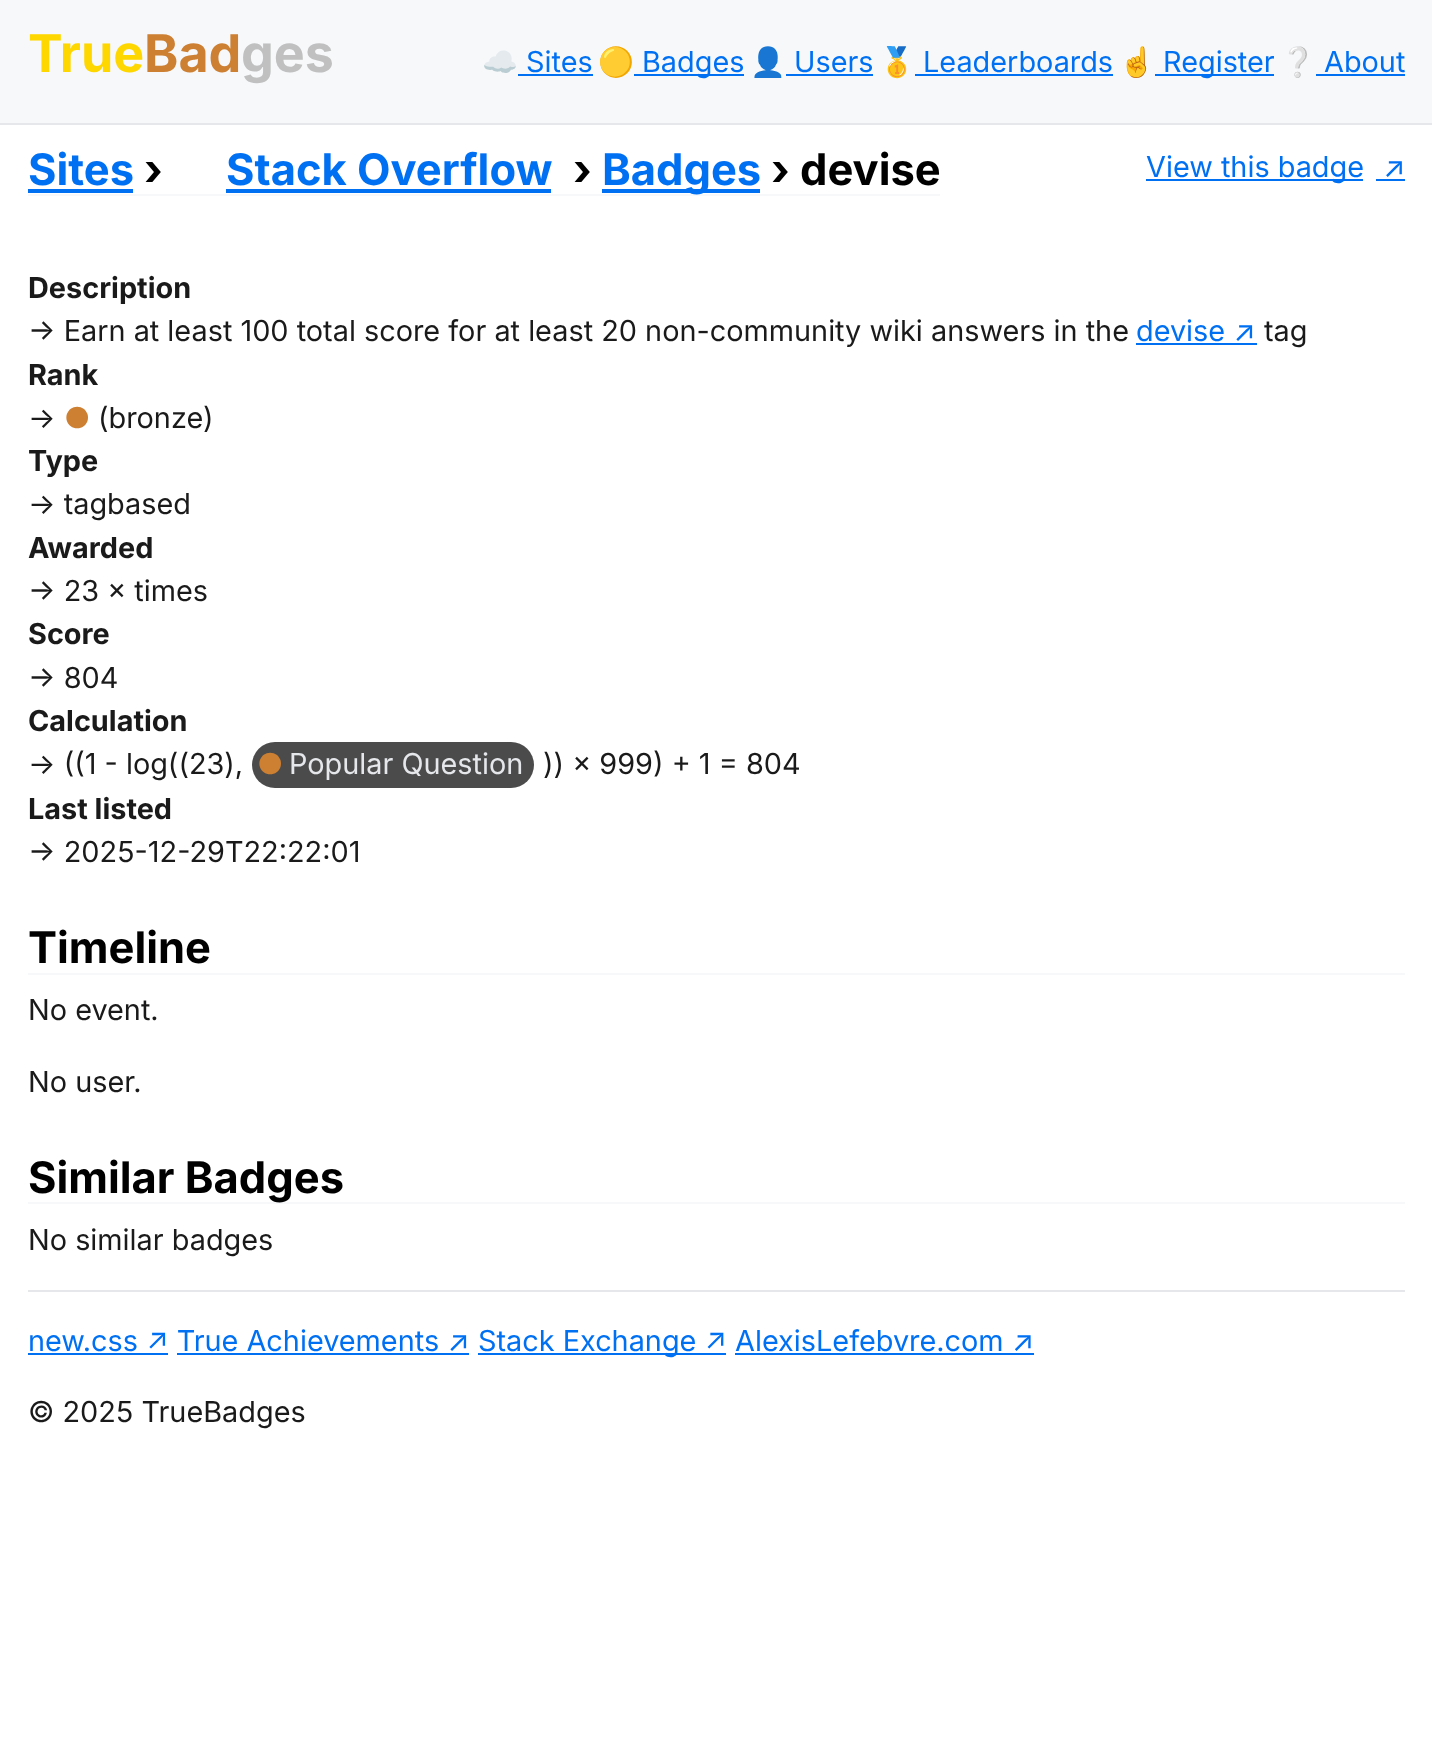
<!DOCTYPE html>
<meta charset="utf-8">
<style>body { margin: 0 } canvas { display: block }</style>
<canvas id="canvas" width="1432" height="1762"></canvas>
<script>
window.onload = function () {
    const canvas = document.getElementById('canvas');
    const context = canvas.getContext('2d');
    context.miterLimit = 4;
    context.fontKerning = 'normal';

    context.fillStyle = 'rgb(255, 255, 255)';
    context.fillRect(0, 0, 1432, 1762);
    context.fillStyle = 'rgb(246, 248, 250)';
    context.fillRect(0, 0, 1432, 123);
    context.fillStyle = 'rgb(229, 231, 235)';
    context.fillRect(0, 123, 1432, 2);
    context.fillStyle = 'rgb(0, 112, 243)';
    context.fillRect(518, 74, 75, 2);
    context.fillRect(634, 74, 110, 2);
    context.fillRect(786, 74, 87, 2);
    context.fillRect(915, 74, 198, 2);
    context.fillRect(1155, 74, 119, 2);
    context.fillRect(1316, 74, 89, 2);
    context.fillStyle = 'rgb(246, 248, 250)';
    context.fillRect(28, 194, 912, 2);
    context.fillStyle = 'rgb(0, 112, 243)';
    context.fillRect(28, 189, 105, 4);
    context.fillRect(226, 189, 325, 4);
    context.fillRect(602, 189, 158, 4);
    context.fillRect(1146, 179, 217, 2);
    context.fillRect(1376, 179, 29, 2);
    context.fillRect(1136, 343, 121, 2);
    context.fillStyle = 'rgb(75, 75, 75)';
    context.beginPath();
    context.roundRect(252, 742, 282, 46, 23);
    context.fill();
    context.fillStyle = 'rgb(246, 248, 250)';
    context.fillRect(28, 973, 1377, 2);
    context.fillRect(28, 1202, 1377, 2);
    context.fillStyle = 'rgb(229, 231, 235)';
    context.fillRect(28, 1290, 1377, 2);
    context.fillStyle = 'rgb(0, 112, 243)';
    context.fillRect(28, 1353, 140, 2);
    context.fillRect(478, 1353, 248, 2);
    context.fillRect(177, 1353, 292, 2);
    context.fillRect(735, 1353, 299, 2);
    context.font = 'bold 52px Inter';
    context.fillStyle = 'rgb(255, 215, 0)';
    context.fillText('True', 28, 72);
    context.fillStyle = 'rgb(205, 127, 50)';
    context.fillText('Bad', 144, 72);
    context.fillStyle = 'rgb(192, 192, 192)';
    context.fillText('ges', 241, 72);
    context.font = '28.85px Noto Color Emoji';
    context.fillStyle = 'rgb(0, 112, 243)';
    context.fillText('☁️', 482, 72);
    context.font = '28.85px Inter';
    context.fillText('Sites', 526, 72);
    context.font = '28.85px Noto Color Emoji';
    context.fillText('🟡️', 598, 72);
    context.font = '28.85px Inter';
    context.fillText('Badges', 642, 72);
    context.font = '28.85px Noto Color Emoji';
    context.fillText('👤', 750, 72);
    context.font = '28.85px Inter';
    context.fillText('Users', 794, 72);
    context.font = '28.85px Noto Color Emoji';
    context.fillText('🥇', 879, 72);
    context.font = '28.85px Inter';
    context.fillText('Leaderboards', 923, 72);
    context.font = '28.85px Noto Color Emoji';
    context.fillText('☝️', 1119, 72);
    context.font = '28.85px Inter';
    context.fillText('Register', 1163, 72);
    context.font = '28.85px Noto Color Emoji';
    context.fillText('❔', 1280, 72);
    context.font = '28.85px Inter';
    context.fillText('About', 1324, 72);
    context.font = 'bold 43.5px Inter';
    context.fillText('Sites', 28, 185);
    context.fillStyle = 'rgb(0, 0, 0)';
    context.fillText('›', 144, 185);
    context.fillStyle = 'rgb(0, 112, 243)';
    context.fillText('Stack Overflow', 226, 185);
    context.fillStyle = 'rgb(0, 0, 0)';
    context.fillText('›', 573, 185);
    context.fillStyle = 'rgb(0, 112, 243)';
    context.fillText('Badges', 602, 185);
    context.fillStyle = 'rgb(0, 0, 0)';
    context.fillText('› devise', 771, 185);
    context.font = '28.85px Inter';
    context.fillStyle = 'rgb(0, 112, 243)';
    context.fillText('View this badge', 1146, 177);
    context.fillText('↗', 1383, 177);
    context.font = 'bold 28.85px Inter';
    context.fillStyle = 'rgb(26, 26, 26)';
    context.fillText('Description', 28, 298);
    context.font = '28.85px Inter';
    context.fillText('→ Earn at least 100 total score for at least 20 non-community wiki answers in the', 28, 341);
    context.fillStyle = 'rgb(0, 112, 243)';
    context.fillText('devise ↗', 1136, 341);
    context.fillStyle = 'rgb(26, 26, 26)';
    context.fillText('tag', 1264, 341);
    context.font = 'bold 28.85px Inter';
    context.fillText('Rank', 28, 385);
    context.font = '28.85px Inter';
    context.fillText('→', 28, 428);
    context.fillStyle = 'rgb(205, 127, 50)';
    context.fillText('●', 64, 428);
    context.fillStyle = 'rgb(26, 26, 26)';
    context.fillText('(bronze)', 98, 428);
    context.font = 'bold 28.85px Inter';
    context.fillText('Type', 28, 471);
    context.font = '28.85px Inter';
    context.fillText('→ tagbased', 28, 514);
    context.font = 'bold 28.85px Inter';
    context.fillText('Awarded', 28, 558);
    context.font = '28.85px Inter';
    context.fillText('→ 23 × times', 28, 601);
    context.font = 'bold 28.85px Inter';
    context.fillText('Score', 28, 644);
    context.font = '28.85px Inter';
    context.fillText('→ 804', 28, 688);
    context.font = 'bold 28.85px Inter';
    context.fillText('Calculation', 28, 731);
    context.font = '28.85px Inter';
    context.fillText('→ ((1 - log((23),', 28, 774);
    context.fillStyle = 'rgb(205, 127, 50)';
    context.fillText('●', 257, 774);
    context.fillStyle = 'rgb(229, 231, 235)';
    context.fillText('Popular Question', 289, 774);
    context.fillStyle = 'rgb(26, 26, 26)';
    context.fillText(')) × 999) + 1 = 804', 543, 774);
    context.font = 'bold 28.85px Inter';
    context.fillText('Last listed', 28, 819);
    context.font = '28.85px Inter';
    context.fillText('→ 2025-12-29T22:22:01', 28, 862);
    context.font = 'bold 43.5px Inter';
    context.fillStyle = 'rgb(0, 0, 0)';
    context.fillText('Timeline', 28, 963);
    context.font = '28.85px Inter';
    context.fillStyle = 'rgb(26, 26, 26)';
    context.fillText('No event.', 28, 1020);
    context.fillText('No user.', 28, 1092);
    context.font = 'bold 43.5px Inter';
    context.fillStyle = 'rgb(0, 0, 0)';
    context.fillText('Similar Badges', 28, 1193);
    context.font = '28.85px Inter';
    context.fillStyle = 'rgb(26, 26, 26)';
    context.fillText('No similar badges', 28, 1250);
    context.fillStyle = 'rgb(0, 112, 243)';
    context.fillText('new.css ↗ True Achievements ↗', 28, 1351);
    context.fillText('Stack Exchange ↗ AlexisLefebvre.com ↗', 478, 1351);
    context.fillStyle = 'rgb(26, 26, 26)';
    context.fillText('© 2025 TrueBadges', 28, 1422);
};
</script>
